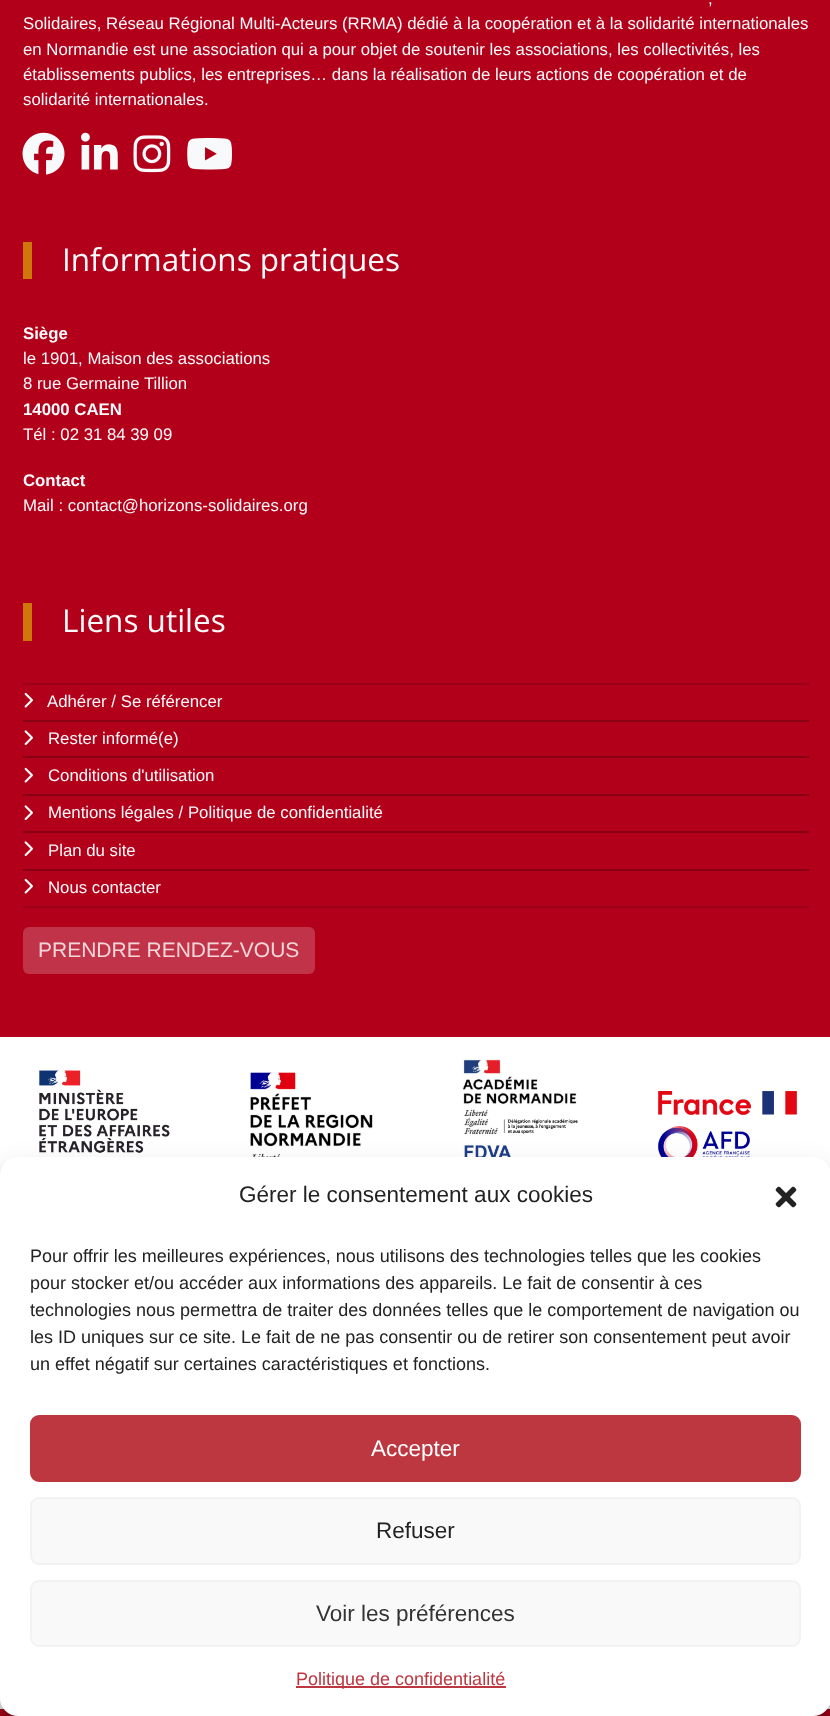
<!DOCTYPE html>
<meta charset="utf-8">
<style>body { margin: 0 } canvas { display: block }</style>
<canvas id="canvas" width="830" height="1716"></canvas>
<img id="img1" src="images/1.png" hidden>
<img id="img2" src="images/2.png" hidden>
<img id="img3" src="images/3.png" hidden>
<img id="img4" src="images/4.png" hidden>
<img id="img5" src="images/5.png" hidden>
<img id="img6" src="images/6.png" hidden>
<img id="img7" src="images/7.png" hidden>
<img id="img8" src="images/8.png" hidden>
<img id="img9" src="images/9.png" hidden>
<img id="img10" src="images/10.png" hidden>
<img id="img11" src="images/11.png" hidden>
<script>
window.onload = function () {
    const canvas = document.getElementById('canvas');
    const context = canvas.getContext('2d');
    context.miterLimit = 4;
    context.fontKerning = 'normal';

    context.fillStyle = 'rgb(178, 0, 26)';
    context.fillRect(0, 0, 830, 1716);
    context.drawImage(document.getElementById('img1'), 22, 132, 43, 43);
    context.drawImage(document.getElementById('img2'), 81, 132, 37, 38);
    context.drawImage(document.getElementById('img3'), 133, 135, 38, 38);
    context.drawImage(document.getElementById('img4'), 187, 138, 45, 32);
    context.fillStyle = 'rgb(208, 119, 12)';
    context.fillRect(23, 242, 9, 37);
    context.fillRect(23, 603, 9, 38);
    context.fillStyle = 'rgb(156, 0, 23)';
    context.fillRect(23, 683, 786, 2);
    context.drawImage(document.getElementById('img5'), 24, 692, 9, 16);
    context.fillStyle = 'rgb(137, 0, 20)';
    context.fillRect(23, 720, 786, 2);
    context.drawImage(document.getElementById('img6'), 24, 730, 9, 15);
    context.fillRect(23, 756, 786, 2);
    context.drawImage(document.getElementById('img5'), 24, 767, 9, 16);
    context.fillRect(23, 794, 786, 2);
    context.drawImage(document.getElementById('img6'), 24, 805, 9, 15);
    context.fillRect(23, 831, 786, 2);
    context.drawImage(document.getElementById('img6'), 24, 841, 9, 15);
    context.fillRect(23, 869, 786, 2);
    context.fillStyle = 'rgb(156, 0, 23)';
    context.fillRect(23, 906, 786, 2);
    context.drawImage(document.getElementById('img5'), 24, 878, 9, 16);
    context.fillStyle = 'rgb(193, 51, 72)';
    context.beginPath();
    context.roundRect(23, 927, 292, 47, 6);
    context.fill();
    context.fillStyle = 'rgb(255, 255, 255)';
    context.fillRect(0, 1037, 830, 672);
    context.drawImage(document.getElementById('img7'), 39, 1070, 131, 87);
    context.drawImage(document.getElementById('img8'), 250, 1072, 123, 85);
    context.drawImage(document.getElementById('img9'), 462, 1059, 116, 98);
    context.drawImage(document.getElementById('img10'), 658, 1091, 139, 66);
    context.fillStyle = 'rgba(0, 0, 0, 0.23)';
    context.filter = 'blur(4.5px)';
    context.beginPath();
    context.roundRect(0, 1166, 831, 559, 18);
    context.fill();
    context.filter = 'none';
    context.fillStyle = 'rgba(0, 0, 0, 0.19)';
    context.filter = 'blur(15px)';
    context.beginPath();
    context.roundRect(0, 1172, 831, 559, 18);
    context.fill();
    context.filter = 'none';
    context.fillStyle = 'rgb(255, 255, 255)';
    context.beginPath();
    context.roundRect(0, 1157, 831, 559, 18);
    context.fill();
    context.drawImage(document.getElementById('img11'), 775, 1186, 22, 22);
    context.fillStyle = 'rgb(189, 55, 65)';
    context.beginPath();
    context.roundRect(31, 1416, 769, 65, 8);
    context.fill();
    context.strokeStyle = 'rgb(189, 55, 65)';
    context.lineWidth = 2;
    context.stroke();
    context.fillStyle = 'rgb(249, 249, 249)';
    context.beginPath();
    context.roundRect(31, 1498, 769, 66, 8);
    context.fill();
    context.strokeStyle = 'rgb(242, 242, 242)';
    context.stroke();
    context.beginPath();
    context.roundRect(31, 1581, 769, 65, 8);
    context.fill();
    context.stroke();
    context.fillStyle = 'rgb(189, 55, 65)';
    context.fillRect(296, 1686, 210, 2);
    context.font = '16.8px Liberation Sans';
    context.fillStyle = 'rgb(248, 249, 250)';
    context.fillText(',', 708, 4);
    context.fillText('Solidaires, Réseau Régional Multi-Acteurs (RRMA) dédié à la coopération et à la solidarité internationales', 23, 29);
    context.fillText('en Normandie est une association qui a pour objet de soutenir les associations, les collectivités, les', 23, 55);
    context.fillText('établissements publics, les entreprises… dans la réalisation de leurs actions de coopération et de', 23, 80);
    context.fillText('solidarité internationales.', 23, 105);
    context.font = '31.5px Open Sans';
    context.fillText('Informations pratiques', 62, 271);
    context.font = 'bold 16.8px Liberation Sans';
    context.fillText('Siège', 23, 339);
    context.font = '16.8px Liberation Sans';
    context.fillText('le 1901, Maison des associations', 23, 364);
    context.fillText('8 rue Germaine Tillion', 23, 389);
    context.font = 'bold 16.8px Liberation Sans';
    context.fillText('14000 CAEN', 23, 415);
    context.font = '16.8px Liberation Sans';
    context.fillText('Tél : 02 31 84 39 09', 23, 440);
    context.font = 'bold 16.8px Liberation Sans';
    context.fillText('Contact', 23, 486);
    context.font = '16.8px Liberation Sans';
    context.fillText('Mail : contact@horizons-solidaires.org', 23, 511);
    context.font = '31.5px Open Sans';
    context.fillText('Liens utiles', 62, 632);
    context.font = '16.8px Liberation Sans';
    context.fillText('Adhérer / Se référencer', 47, 707);
    context.fillText('Rester informé(e)', 48, 744);
    context.fillText('Conditions d\'utilisation', 48, 781);
    context.fillText('Mentions légales / Politique de confidentialité', 48, 818);
    context.fillText('Plan du site', 48, 856);
    context.fillText('Nous contacter', 48, 893);
    context.font = '21px Liberation Sans';
    context.fillStyle = 'rgb(243, 214, 218)';
    context.fillText('PRENDRE RENDEZ-VOUS', 38, 957);
    context.font = '22.5px Liberation Sans';
    context.fillStyle = 'rgb(34, 34, 34)';
    context.fillText('Gérer le consentement aux cookies', 239, 1202);
    context.font = '18px Liberation Sans';
    context.fillText('Pour offrir les meilleures expériences, nous utilisons des technologies telles que les cookies', 30, 1262);
    context.fillText('pour stocker et/ou accéder aux informations des appareils. Le fait de consentir à ces', 30, 1289);
    context.fillText('technologies nous permettra de traiter des données telles que le comportement de navigation ou', 30, 1316);
    context.fillText('les ID uniques sur ce site. Le fait de ne pas consentir ou de retirer son consentement peut avoir', 30, 1343);
    context.fillText('un effet négatif sur certaines caractéristiques et fonctions.', 30, 1370);
    context.font = '22.5px Liberation Sans';
    context.fillStyle = 'rgb(255, 255, 255)';
    context.fillText('Accepter', 371, 1456);
    context.fillStyle = 'rgb(34, 34, 34)';
    context.fillText('Refuser', 376, 1538);
    context.fillStyle = 'rgb(51, 51, 51)';
    context.fillText('Voir les préférences', 316, 1621);
    context.font = '18px Liberation Sans';
    context.fillStyle = 'rgb(189, 55, 65)';
    context.fillText('Politique de confidentialité', 296, 1685);
};
</script>
